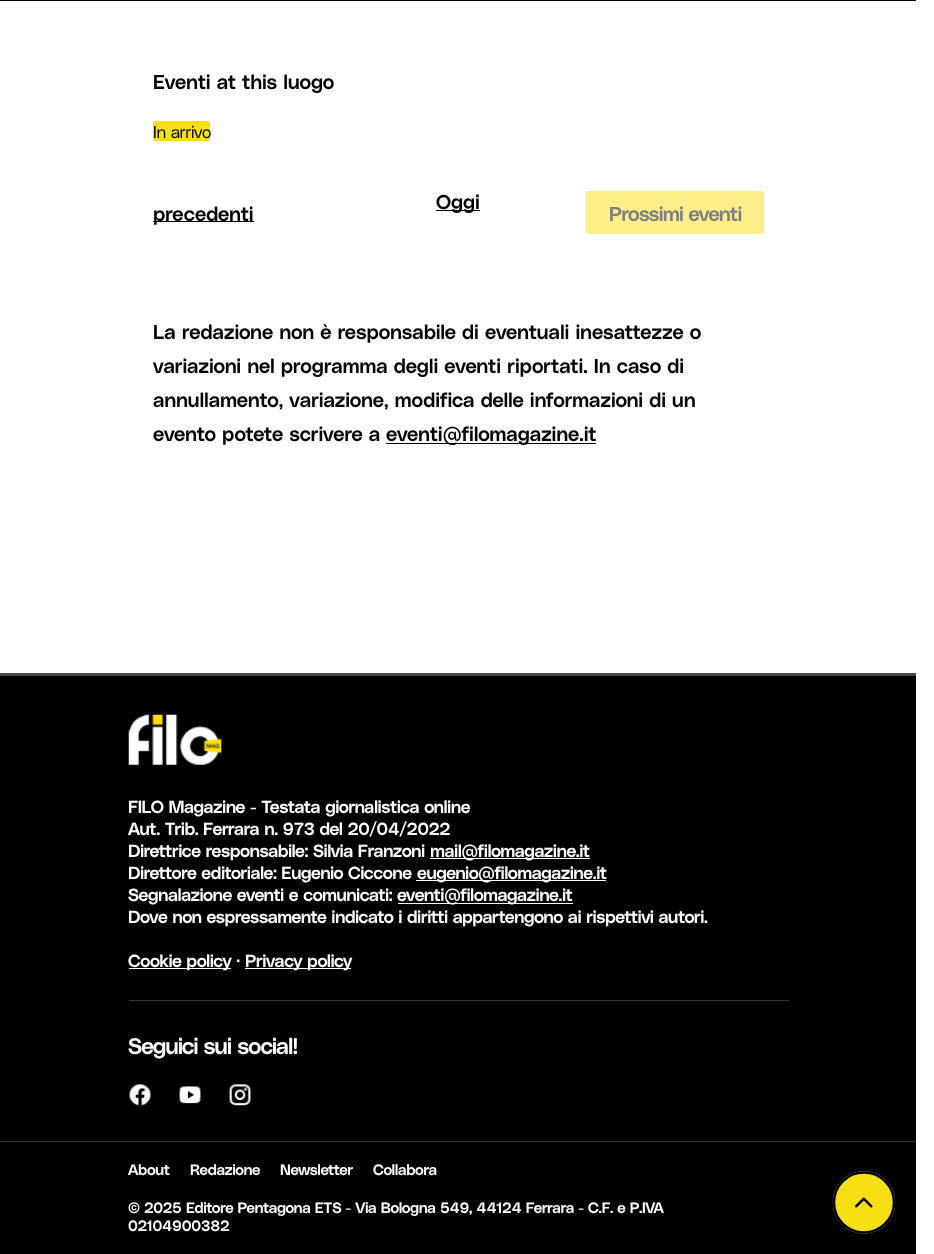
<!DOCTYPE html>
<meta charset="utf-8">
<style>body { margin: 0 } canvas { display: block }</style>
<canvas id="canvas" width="934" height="1254"></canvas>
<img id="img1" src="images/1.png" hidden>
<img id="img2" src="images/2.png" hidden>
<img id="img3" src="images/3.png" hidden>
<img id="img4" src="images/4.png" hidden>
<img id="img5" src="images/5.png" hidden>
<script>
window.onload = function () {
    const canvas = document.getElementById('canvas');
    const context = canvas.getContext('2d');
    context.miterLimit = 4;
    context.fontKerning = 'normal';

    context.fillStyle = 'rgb(255, 255, 255)';
    context.fillRect(0, 0, 934, 1254);
    context.fillStyle = 'rgb(0, 0, 0)';
    context.fillRect(0, 0, 916, 1);
    context.fillStyle = 'rgb(248, 222, 20)';
    context.beginPath();
    context.roundRect(153, 121, 57, 20, 2.5);
    context.fill();
    context.fillStyle = 'rgb(0, 0, 0)';
    context.fillRect(436, 210, 44, 1);
    context.fillRect(153, 221, 101, 1);
    context.fillStyle = 'rgb(252, 239, 138)';
    context.beginPath();
    context.roundRect(586, 191, 178, 43, 2.5);
    context.fill();
    context.fillStyle = 'rgb(0, 0, 0)';
    context.fillRect(386, 443, 210, 1);
    context.fillRect(0, 676, 916, 578);
    context.fillStyle = 'rgb(73, 73, 73)';
    context.fillRect(0, 673, 916, 3);
    context.drawImage(document.getElementById('img1'), 128, 714, 94, 51);
    context.fillStyle = 'rgb(255, 255, 255)';
    context.fillRect(430, 858, 160, 1);
    context.fillRect(416, 880, 190, 1);
    context.fillRect(398, 903, 175, 1);
    context.fillRect(129, 968, 102, 1);
    context.fillRect(245, 968, 106, 1);
    context.fillStyle = 'rgb(52, 52, 52)';
    context.fillRect(129, 1000, 660, 1);
    context.drawImage(document.getElementById('img2'), 129, 1084, 22, 22);
    context.drawImage(document.getElementById('img3'), 179, 1086, 22, 18);
    context.drawImage(document.getElementById('img4'), 229, 1084, 22, 22);
    context.fillRect(0, 1141, 916, 1);
    context.fillStyle = 'rgb(248, 222, 20)';
    context.beginPath();
    context.arc(864, 1203, 30, 0, 2 * Math.PI);
    context.fill();
    context.drawImage(document.getElementById('img5'), 855, 1197, 18, 11);
    context.beginPath();
    context.moveTo(864, 1172.5);
    context.bezierCurveTo(880.5, 1172.5, 894, 1186, 894, 1202.5);
    context.bezierCurveTo(894, 1219, 880.5, 1232.5, 864, 1232.5);
    context.bezierCurveTo(847, 1232.5, 834, 1219, 834, 1202.5);
    context.bezierCurveTo(834, 1186, 847, 1172.5, 864, 1172.5);
    context.strokeStyle = 'rgb(217, 217, 217)';
    context.lineWidth = 2.5;
    context.stroke();
    context.beginPath();
    context.moveTo(864, 1172.5);
    context.bezierCurveTo(880.5, 1172.5, 894, 1186, 894, 1202.5);
    context.bezierCurveTo(894, 1219, 880.5, 1232.5, 864, 1232.5);
    context.bezierCurveTo(847, 1232.5, 834, 1219, 834, 1202.5);
    context.bezierCurveTo(834, 1186, 847, 1172.5, 864, 1172.5);
    context.strokeStyle = 'rgb(0, 0, 0)';
    context.stroke();
    context.font = '600 20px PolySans';
    context.fillStyle = 'rgb(0, 0, 0)';
    context.fillText('Eventi at this luogo', 153, 89);
    context.letterSpacing = '-0.25px';
    context.font = '300 17px PolySans';
    context.fillText('In arrivo', 153, 138);
    context.letterSpacing = '0px';
    context.font = '600 20px PolySans';
    context.fillText('Oggi', 436, 209);
    context.fillText('precedenti', 153, 221);
    context.letterSpacing = '-0.6px';
    context.fillStyle = 'rgb(128, 128, 128)';
    context.fillText('Prossimi eventi', 609, 221);
    context.letterSpacing = '0px';
    context.fillStyle = 'rgb(0, 0, 0)';
    context.fillText('La redazione non è responsabile di eventuali inesattezze o', 153, 339);
    context.fillText('variazioni nel programma degli eventi riportati. In caso di', 153, 373);
    context.fillText('annullamento, variazione, modifica delle informazioni di un', 153, 407);
    context.fillText('evento potete scrivere a', 153, 441);
    context.fillText('eventi@filomagazine.it', 386, 441);
    context.letterSpacing = '-0.4px';
    context.font = '600 17.5px PolySans';
    context.fillStyle = 'rgb(255, 255, 255)';
    context.fillText('FILO Magazine - Testata giornalistica online', 128, 813);
    context.fillText('Aut. Trib. Ferrara n. 973 del 20/04/2022', 128, 835);
    context.fillText('Direttrice responsabile: Silvia Franzoni', 128, 857);
    context.fillText('mail@filomagazine.it', 430, 857);
    context.fillText('Direttore editoriale: Eugenio Ciccone', 128, 879);
    context.fillText('eugenio@filomagazine.it', 417, 879);
    context.fillText('Segnalazione eventi e comunicati:', 128, 901);
    context.fillText('eventi@filomagazine.it', 397, 901);
    context.fillText('Dove non espressamente indicato i diritti appartengono ai rispettivi autori.', 128, 923);
    context.fillText('Cookie policy ·', 128, 967);
    context.fillText('Privacy policy', 245, 967);
    context.letterSpacing = '-0.9px';
    context.font = '600 22.5px PolySans';
    context.fillText('Seguici sui social!', 128, 1054);
    context.letterSpacing = '-0.3px';
    context.font = '600 15px PolySans';
    context.fillText('About', 128, 1175);
    context.fillText('Redazione', 190, 1175);
    context.fillText('Newsletter', 280, 1175);
    context.fillText('Collabora', 373, 1175);
    context.fillText('© 2025 Editore Pentagona ETS - Via Bologna 549, 44124 Ferrara - C.F. e P.IVA', 128, 1213);
    context.fillText('02104900382', 128, 1231);
};
</script>
